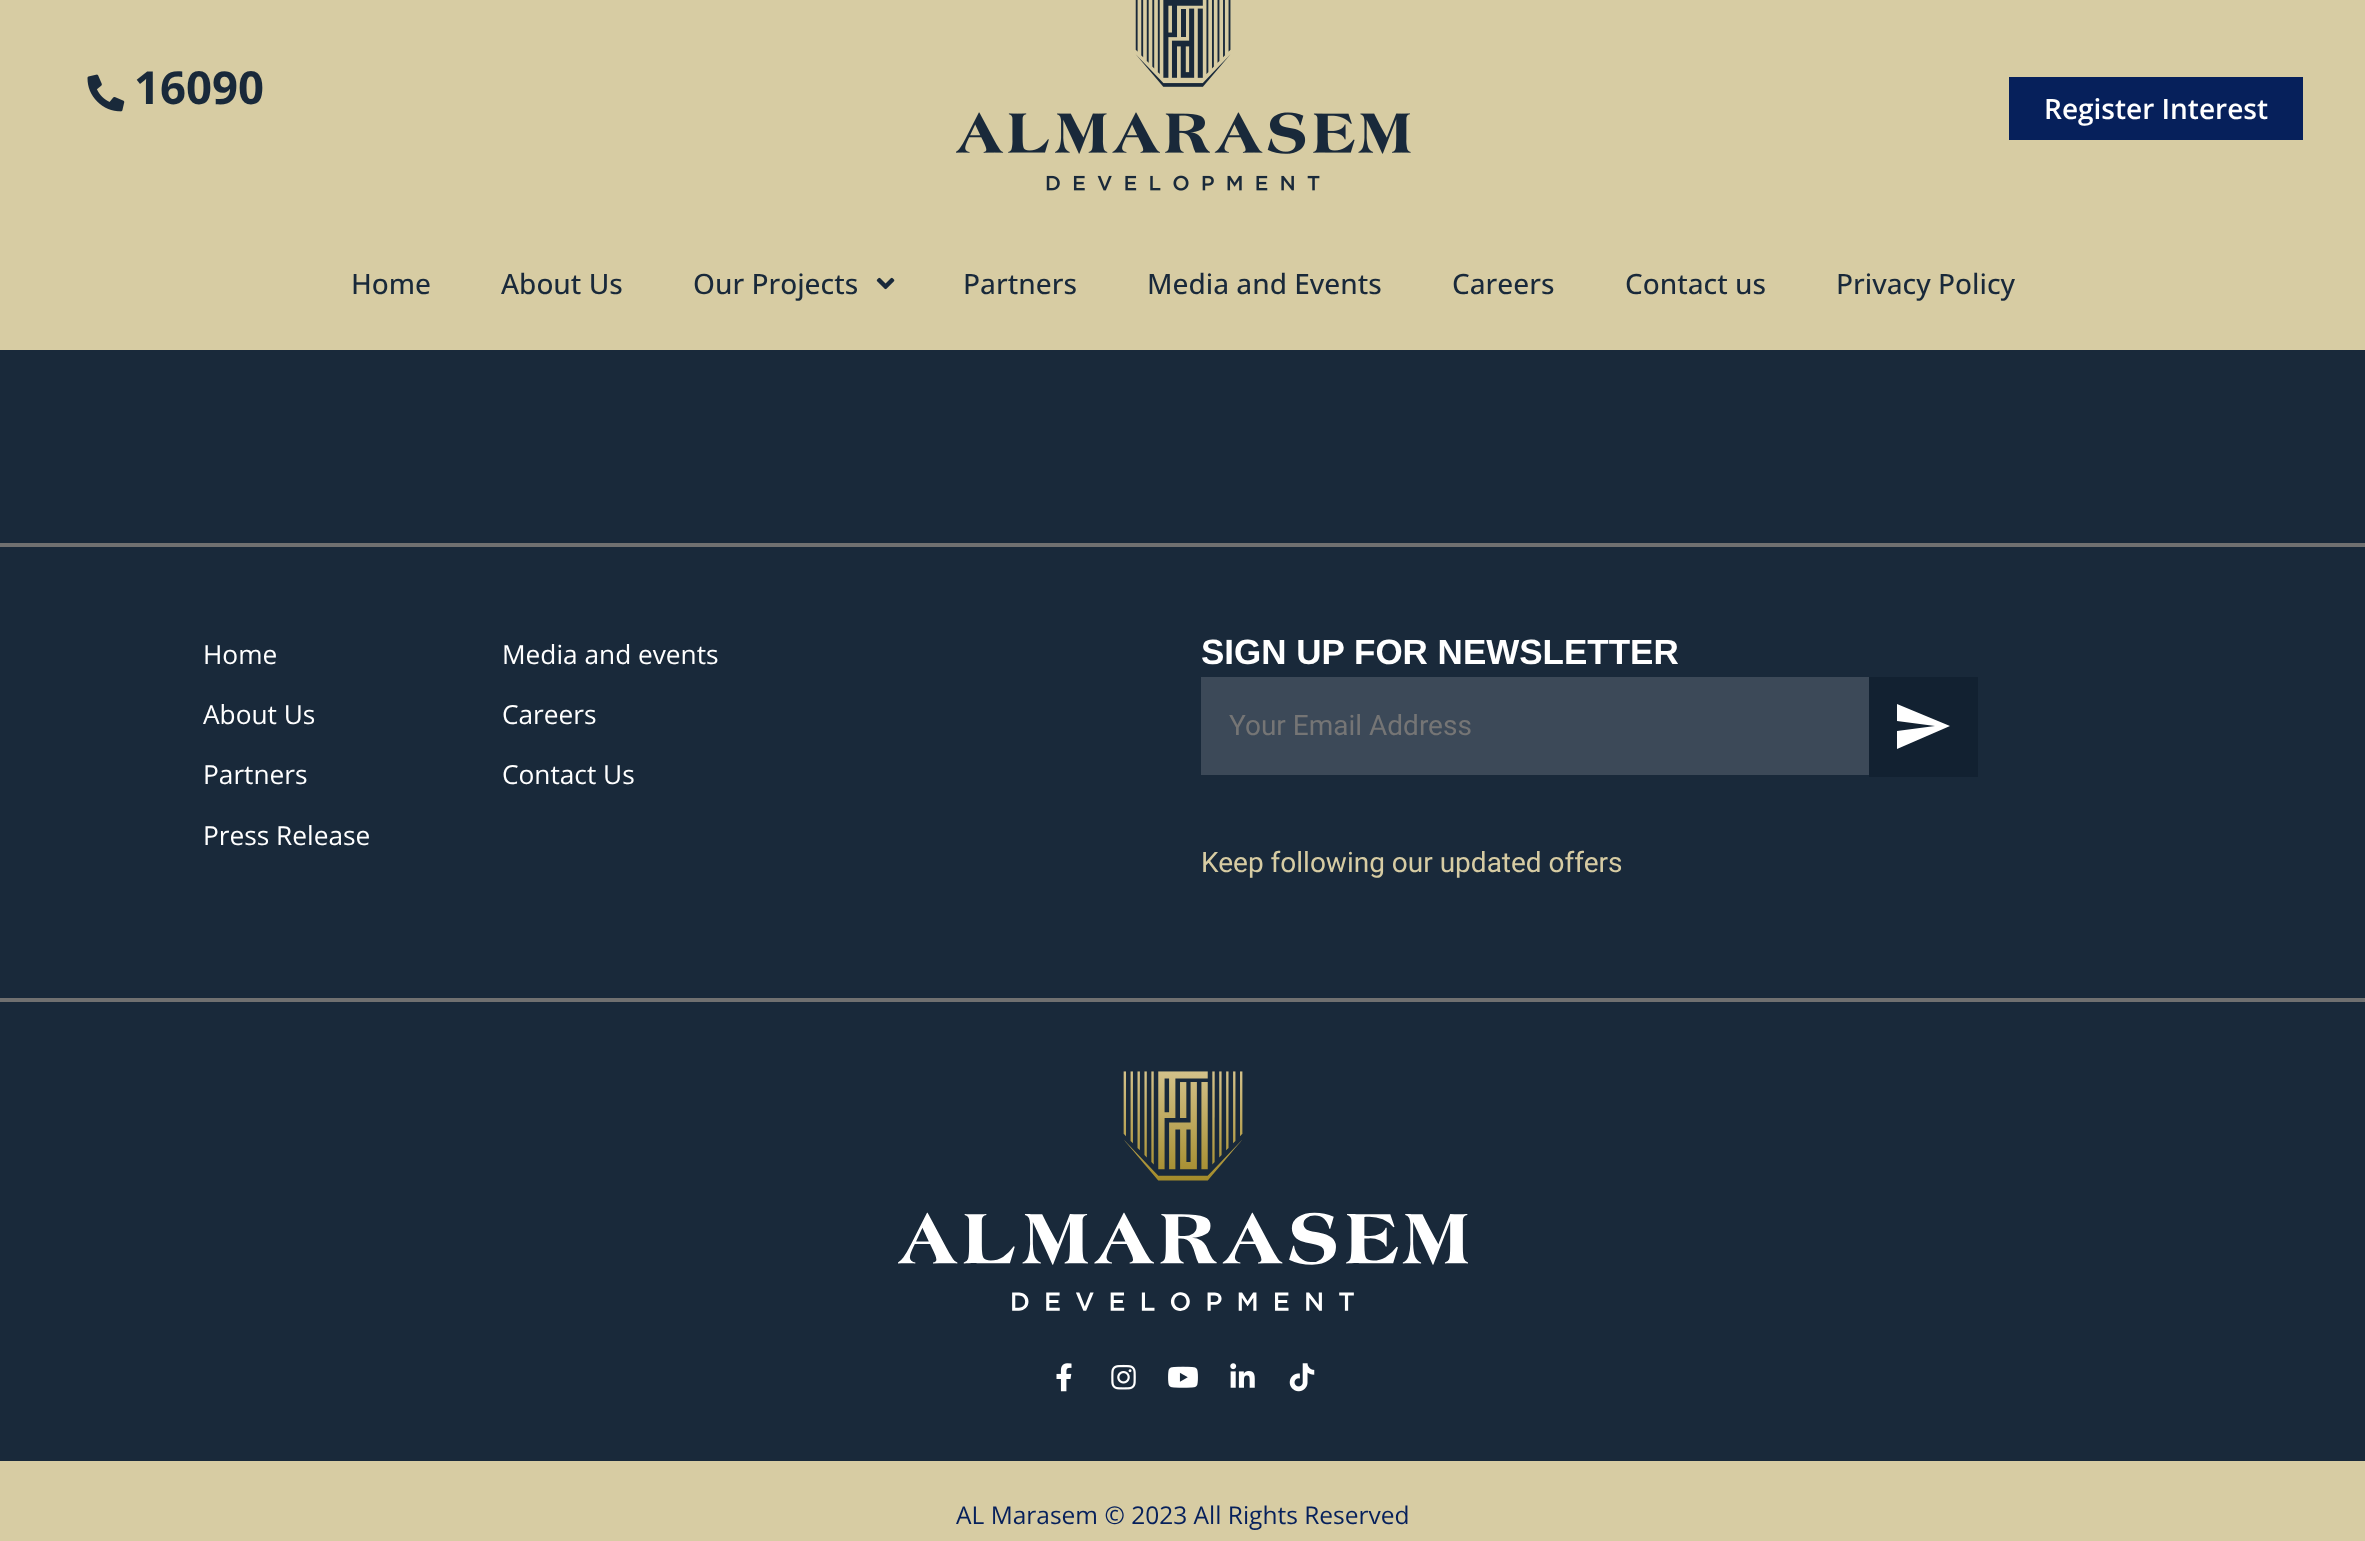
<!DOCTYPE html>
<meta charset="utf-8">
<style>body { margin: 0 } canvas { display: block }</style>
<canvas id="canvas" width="2365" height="1541"></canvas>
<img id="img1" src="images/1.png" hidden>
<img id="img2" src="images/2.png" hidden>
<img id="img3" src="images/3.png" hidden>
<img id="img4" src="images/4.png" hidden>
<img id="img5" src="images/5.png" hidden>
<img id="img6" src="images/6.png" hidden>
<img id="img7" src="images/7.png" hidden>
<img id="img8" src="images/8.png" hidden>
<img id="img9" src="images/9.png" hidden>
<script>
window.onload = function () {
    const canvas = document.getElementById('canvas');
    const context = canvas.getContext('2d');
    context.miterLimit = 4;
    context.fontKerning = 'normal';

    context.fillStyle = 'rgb(25, 41, 58)';
    context.fillRect(0, 0, 2365, 1541);
    context.fillStyle = 'rgb(215, 204, 163)';
    context.fillRect(0, 0, 2365, 350);
    context.drawImage(document.getElementById('img1'), 87, 74, 38, 38);
    context.drawImage(document.getElementById('img2'), 956, 0, 455, 191);
    context.fillStyle = 'rgb(6, 32, 91)';
    context.fillRect(2009, 77, 294, 63);
    context.drawImage(document.getElementById('img3'), 876, 277, 19, 13);
    context.fillStyle = 'rgb(112, 112, 112)';
    context.fillRect(0, 543, 2365, 4);
    context.fillStyle = 'rgb(60, 73, 88)';
    context.fillRect(1201, 677, 668, 98);
    context.fillStyle = 'rgb(18, 33, 49)';
    context.fillRect(1869, 677, 109, 100);
    context.fillStyle = 'rgb(255, 255, 255)';
    context.beginPath();
    context.moveTo(1897, 749);
    context.lineTo(1950, 726);
    context.lineTo(1897, 704);
    context.lineTo(1897, 721);
    context.lineTo(1935, 726);
    context.lineTo(1897, 731);
    context.closePath();
    context.fill();
    context.fillStyle = 'rgb(112, 112, 112)';
    context.fillRect(0, 998, 2365, 4);
    context.drawImage(document.getElementById('img4'), 898, 1071, 570, 240);
    context.drawImage(document.getElementById('img5'), 1056, 1363, 16, 29);
    context.drawImage(document.getElementById('img6'), 1111, 1364, 25, 26);
    context.drawImage(document.getElementById('img7'), 1168, 1366, 30, 22);
    context.drawImage(document.getElementById('img8'), 1230, 1363, 25, 25);
    context.drawImage(document.getElementById('img9'), 1289, 1363, 26, 29);
    context.fillStyle = 'rgb(215, 204, 163)';
    context.fillRect(0, 1461, 2365, 80);
    context.font = 'bold 45.5px Open Sans';
    context.fillStyle = 'rgb(25, 41, 58)';
    context.fillText('16090', 134, 104);
    context.font = '600 28px Open Sans';
    context.fillStyle = 'rgb(255, 255, 255)';
    context.fillText('Register Interest', 2044, 119);
    context.font = '500 28px Open Sans';
    context.fillStyle = 'rgb(25, 41, 58)';
    context.fillText('Home', 351, 294);
    context.fillText('About Us', 501, 294);
    context.fillText('Our Projects', 693, 294);
    context.fillText('Partners', 963, 294);
    context.fillText('Media and Events', 1147, 294);
    context.fillText('Careers', 1452, 294);
    context.fillText('Contact us', 1625, 294);
    context.fillText('Privacy Policy', 1836, 294);
    context.font = '26.25px Open Sans';
    context.fillStyle = 'rgb(255, 255, 255)';
    context.fillText('Home', 203, 664);
    context.fillText('About Us', 203, 724);
    context.fillText('Partners', 203, 784);
    context.fillText('Press Release', 203, 845);
    context.fillText('Media and events', 502, 664);
    context.fillText('Careers', 502, 724);
    context.fillText('Contact Us', 502, 784);
    context.font = 'bold 35px Liberation Sans';
    context.fillText('SIGN UP FOR NEWSLETTER', 1201, 664);
    context.font = '28px Roboto';
    context.fillStyle = 'rgb(117, 117, 117)';
    context.fillText('Your Email Address', 1229, 735);
    context.fillStyle = 'rgb(215, 204, 163)';
    context.fillText('Keep following our updated offers', 1201, 872);
    context.font = '24.5px Open Sans';
    context.fillStyle = 'rgb(6, 32, 91)';
    context.fillText('AL Marasem © 2023 All Rights Reserved', 956, 1524);
};
</script>
